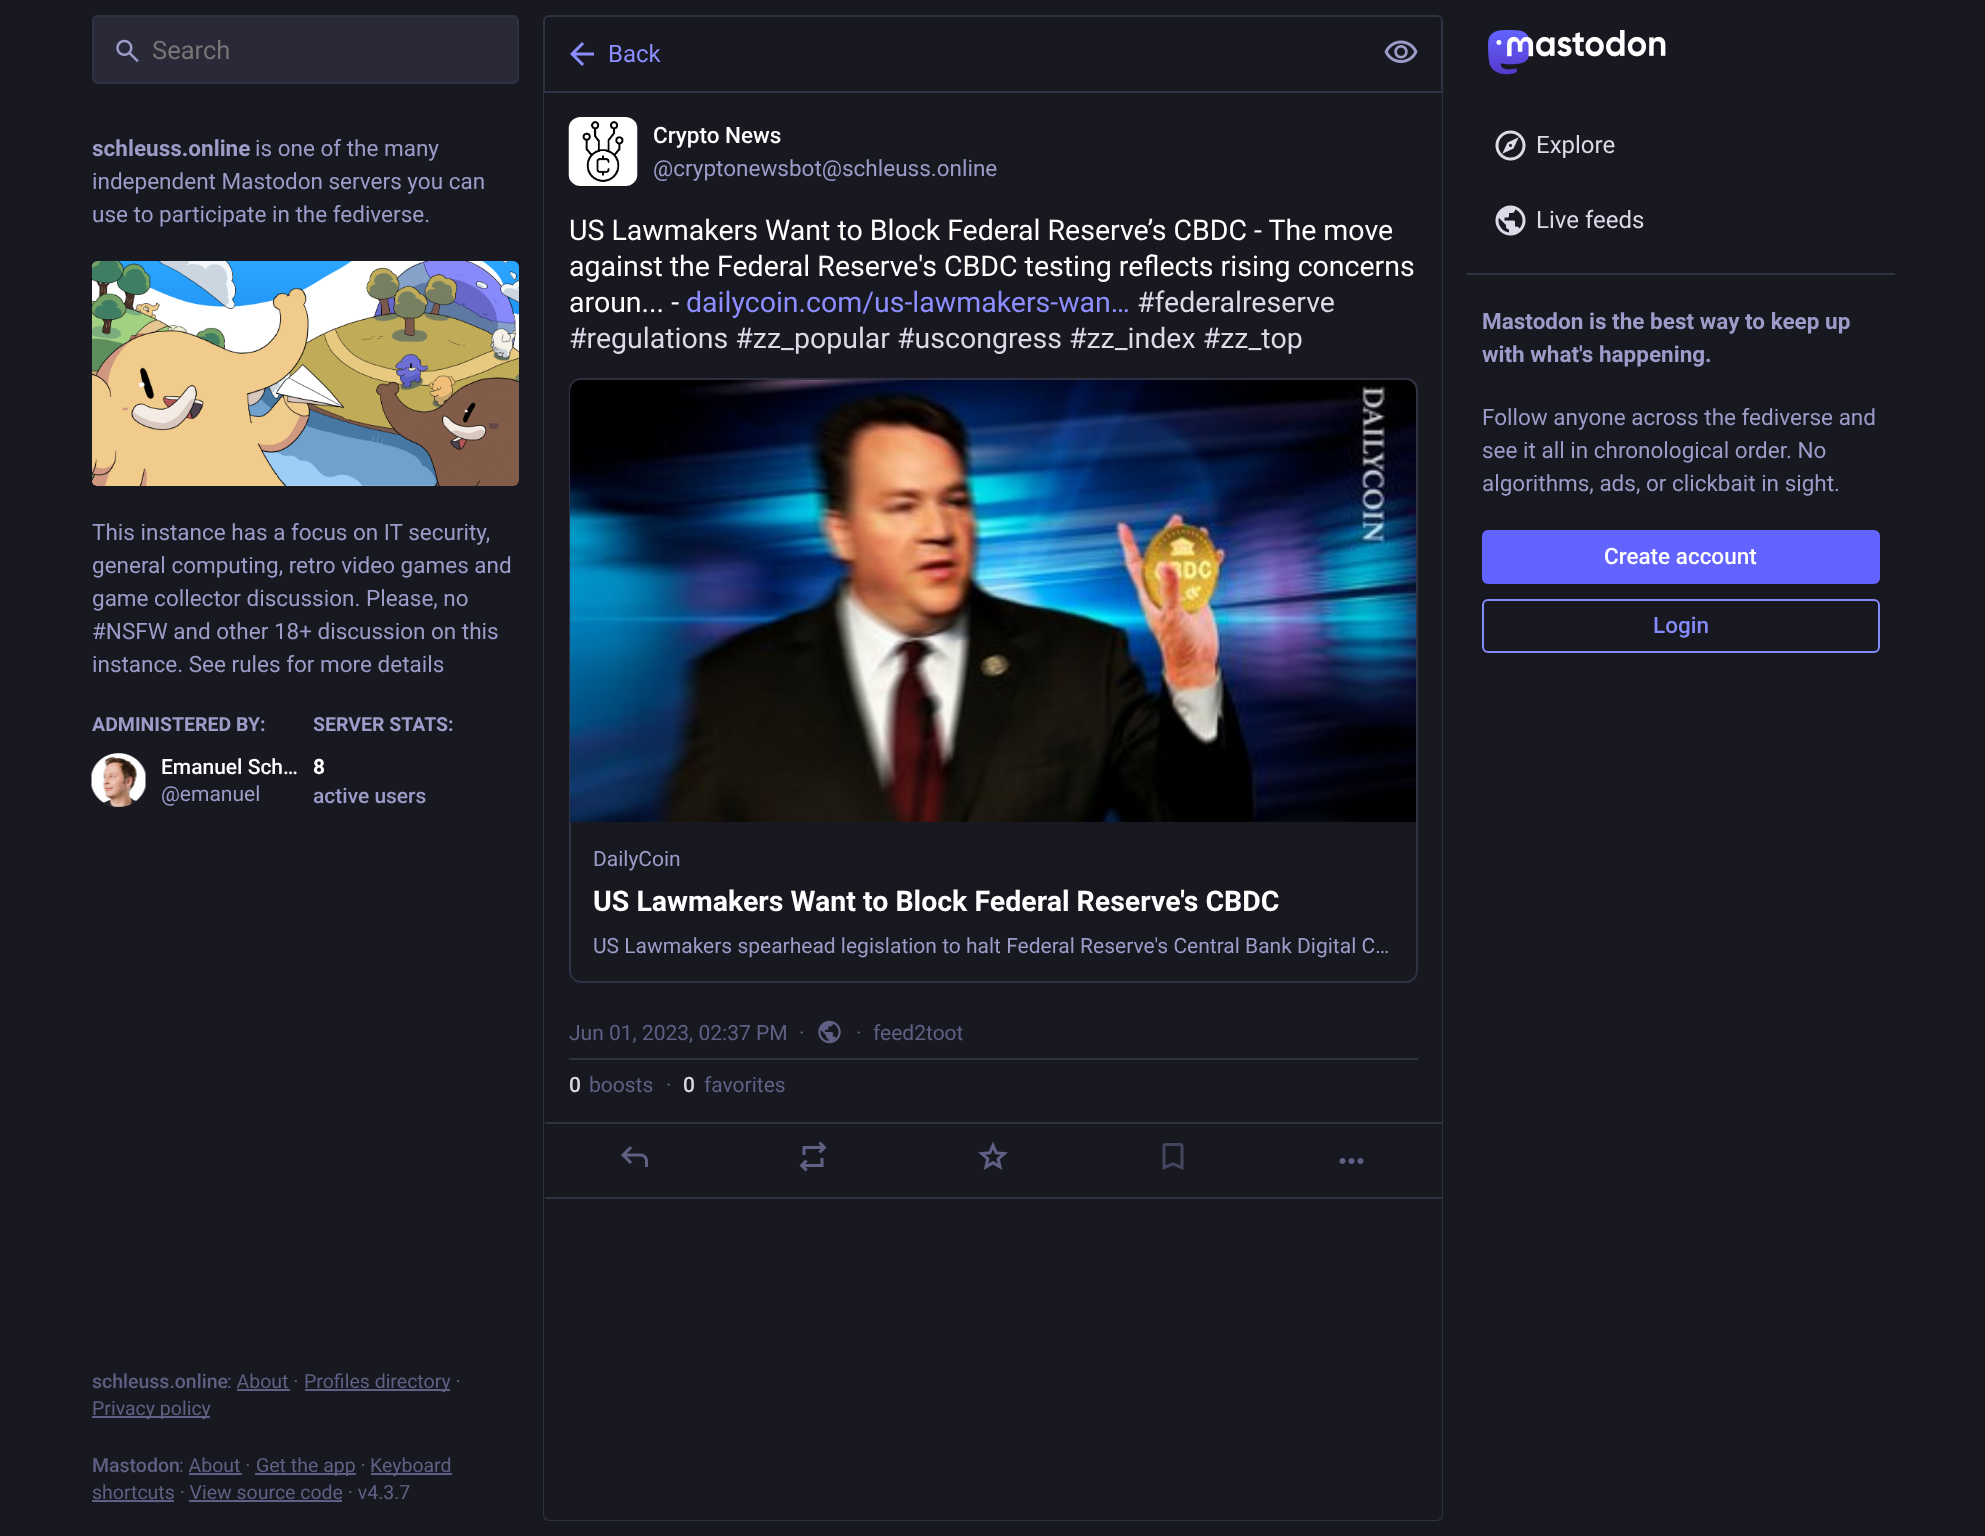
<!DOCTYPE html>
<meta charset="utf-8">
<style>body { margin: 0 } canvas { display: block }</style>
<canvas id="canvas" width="1985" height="1536"></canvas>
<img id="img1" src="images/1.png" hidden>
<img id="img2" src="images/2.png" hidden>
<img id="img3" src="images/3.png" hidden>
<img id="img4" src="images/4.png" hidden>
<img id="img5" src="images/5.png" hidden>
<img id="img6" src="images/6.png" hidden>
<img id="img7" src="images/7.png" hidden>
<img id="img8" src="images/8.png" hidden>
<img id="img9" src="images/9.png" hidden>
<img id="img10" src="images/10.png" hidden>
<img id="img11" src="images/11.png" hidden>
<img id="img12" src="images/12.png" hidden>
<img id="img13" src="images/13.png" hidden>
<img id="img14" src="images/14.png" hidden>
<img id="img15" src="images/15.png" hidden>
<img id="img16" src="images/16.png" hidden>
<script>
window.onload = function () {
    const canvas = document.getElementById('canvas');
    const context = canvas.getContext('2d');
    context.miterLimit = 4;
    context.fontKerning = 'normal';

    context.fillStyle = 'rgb(24, 24, 33)';
    context.fillRect(0, 0, 1985, 1536);
    context.fillStyle = 'rgb(41, 41, 56)';
    context.beginPath();
    context.roundRect(93, 16, 425, 67, 5);
    context.fill();
    context.strokeStyle = 'rgb(49, 49, 68)';
    context.lineWidth = 2;
    context.stroke();
    context.drawImage(document.getElementById('img1'), 116, 39, 23, 24);
    context.drawImage(document.getElementById('img2'), 92, 261, 427, 225);
    context.drawImage(document.getElementById('img3'), 91, 753, 55, 54);
    context.fillStyle = 'rgb(96, 96, 133)';
    context.fillRect(305, 1389, 145, 2);
    context.fillRect(237, 1389, 53, 2);
    context.fillRect(92, 1416, 118, 2);
    context.fillRect(255, 1473, 101, 2);
    context.fillRect(371, 1473, 81, 2);
    context.fillRect(189, 1473, 53, 2);
    context.fillRect(92, 1500, 82, 2);
    context.fillRect(189, 1500, 153, 2);
    context.beginPath();
    context.roundRect(544, 16, 898, 76, [5, 5, 0, 0]);
    context.stroke();
    context.drawImage(document.getElementById('img4'), 570, 42, 24, 24);
    context.drawImage(document.getElementById('img5'), 1384, 40, 34, 23);
    context.fillStyle = 'rgb(49, 49, 68)';
    context.beginPath();
    context.moveTo(543, 93);
    context.lineTo(1443, 93);
    context.lineTo(1443, 1515);
    context.bezierCurveTo(1443, 1518, 1440, 1521, 1437, 1521);
    context.lineTo(549, 1521);
    context.bezierCurveTo(546, 1521, 543, 1518, 543, 1515);
    context.closePath();
    context.moveTo(544, 93);
    context.lineTo(1442, 93);
    context.lineTo(1442, 1515);
    context.bezierCurveTo(1442, 1517, 1439, 1520, 1437, 1520);
    context.lineTo(549, 1520);
    context.bezierCurveTo(547, 1520, 544, 1517, 544, 1515);
    context.closePath();
    context.fill('evenodd');
    context.drawImage(document.getElementById('img6'), 568, 117, 70, 69);
    context.beginPath();
    context.roundRect(570, 379, 847, 603, 11);
    context.stroke();
    context.drawImage(document.getElementById('img7'), 570, 379, 846, 443);
    context.fillRect(569, 1058, 849, 2);
    context.drawImage(document.getElementById('img8'), 818, 1020, 23, 24);
    context.fillRect(545, 1122, 897, 2);
    context.fillRect(545, 1197, 897, 2);
    context.drawImage(document.getElementById('img9'), 621, 1146, 27, 21);
    context.drawImage(document.getElementById('img10'), 799, 1141, 28, 31);
    context.drawImage(document.getElementById('img11'), 978, 1141, 30, 29);
    context.drawImage(document.getElementById('img12'), 1162, 1143, 22, 27);
    context.drawImage(document.getElementById('img13'), 1339, 1158, 25, 6);
    context.drawImage(document.getElementById('img14'), 1488, 30, 178, 45);
    context.drawImage(document.getElementById('img15'), 1495, 130, 31, 31);
    context.drawImage(document.getElementById('img16'), 1495, 205, 31, 31);
    context.fillRect(1467, 273, 428, 2);
    context.fillStyle = 'rgb(99, 100, 255)';
    context.beginPath();
    context.roundRect(1482, 530, 398, 54, 6);
    context.fill();
    context.beginPath();
    context.roundRect(1483, 600, 396, 52, 5);
    context.strokeStyle = 'rgb(133, 138, 250)';
    context.stroke();
    context.font = '25.5px Roboto';
    context.fillStyle = 'rgb(117, 117, 117)';
    context.fillText('Search', 152, 59);
    context.font = 'bold 22.5px Roboto';
    context.fillStyle = 'rgb(156, 156, 201)';
    context.fillText('schleuss.online', 92, 156);
    context.font = '22.5px Roboto';
    context.fillText('is one of the many', 255, 156);
    context.fillText('independent Mastodon servers you can', 92, 189);
    context.fillText('use to participate in the fediverse.', 92, 222);
    context.fillText('This instance has a focus on IT security,', 92, 540);
    context.fillText('general computing, retro video games and', 92, 573);
    context.fillText('game collector discussion. Please, no', 92, 606);
    context.fillText('#NSFW and other 18+ discussion on this', 92, 639);
    context.fillText('instance. See rules for more details', 92, 672);
    context.font = 'bold 19.5px Roboto';
    context.fillText('ADMINISTERED BY:', 92, 731);
    context.font = '500 21px Roboto';
    context.fillStyle = 'rgb(255, 255, 255)';
    context.fillText('Emanuel Sch…', 161, 774);
    context.font = '21px Roboto';
    context.fillStyle = 'rgb(156, 156, 201)';
    context.fillText('@emanuel', 161, 801);
    context.save();
    context.beginPath();
    context.rect(314, 711, 205, 99);
    context.clip();
    context.font = 'bold 19.5px Roboto';
    context.fillText('SERVER STATS:', 313, 731);
    context.restore();
    context.font = 'bold 21px Roboto';
    context.fillStyle = 'rgb(255, 255, 255)';
    context.fillText('8', 313, 774);
    context.save();
    context.beginPath();
    context.rect(314, 711, 205, 99);
    context.clip();
    context.font = '500 21px Roboto';
    context.fillStyle = 'rgb(156, 156, 201)';
    context.fillText('active users', 313, 803);
    context.restore();
    context.font = '500 19.5px Roboto';
    context.fillStyle = 'rgb(96, 96, 133)';
    context.fillText('schleuss.online', 92, 1388);
    context.font = '19.5px Roboto';
    context.fillText(': About ·', 227, 1388);
    context.fillText('Profiles directory ·', 304, 1388);
    context.fillText('Privacy policy', 92, 1415);
    context.font = '500 19.5px Roboto';
    context.fillText('Mastodon', 92, 1472);
    context.font = '19.5px Roboto';
    context.fillText(': About ·', 179, 1472);
    context.fillText('Get the app ·', 256, 1472);
    context.fillText('Keyboard', 370, 1472);
    context.fillText('shortcuts · View source code · v4.3.7', 92, 1499);
    context.font = '24px Roboto';
    context.fillStyle = 'rgb(140, 141, 255)';
    context.fillText('Back', 608, 62);
    context.font = '500 22.5px Roboto';
    context.fillStyle = 'rgb(255, 255, 255)';
    context.fillText('Crypto News', 653, 143);
    context.font = '22.5px Roboto';
    context.fillStyle = 'rgb(156, 156, 201)';
    context.fillText('@cryptonewsbot@schleuss.online', 653, 176);
    context.font = '28.5px Roboto';
    context.fillStyle = 'rgb(255, 255, 255)';
    context.fillText('US Lawmakers Want to Block Federal Reserve’s CBDC - The move', 569, 240);
    context.fillText('against the Federal Reserve\'s CBDC testing reflects rising concerns', 569, 276);
    context.fillText('aroun... -', 569, 312);
    context.fillStyle = 'rgb(140, 141, 255)';
    context.fillText('dailycoin.com/us-lawmakers-wan…', 686, 312);
    context.fillStyle = 'rgb(221, 217, 232)';
    context.fillText('#federalreserve', 1137, 312);
    context.fillText('#regulations #zz_popular #uscongress #zz_index #zz_top', 569, 348);
    context.font = '21px Roboto';
    context.fillStyle = 'rgb(156, 156, 201)';
    context.fillText('DailyCoin', 593, 866);
    context.font = 'bold 28.5px Roboto';
    context.fillStyle = 'rgb(255, 255, 255)';
    context.fillText('US Lawmakers Want to Block Federal Reserve\'s CBDC', 593, 911);
    context.font = '21px Roboto';
    context.fillStyle = 'rgb(156, 156, 201)';
    context.fillText('US Lawmakers spearhead legislation to halt Federal Reserve\'s Central Bank Digital C…', 593, 953);
    context.fillStyle = 'rgb(96, 96, 133)';
    context.fillText('Jun 01, 2023, 02:37 PM', 569, 1040);
    context.fillText('·', 799, 1040);
    context.fillText('·', 856, 1040);
    context.fillText('feed2toot', 873, 1040);
    context.font = '500 21px Roboto';
    context.fillStyle = 'rgb(221, 217, 232)';
    context.fillText('0', 569, 1092);
    context.font = '21px Roboto';
    context.fillStyle = 'rgb(96, 96, 133)';
    context.fillText('boosts', 589, 1092);
    context.fillText('·', 666, 1092);
    context.font = '500 21px Roboto';
    context.fillStyle = 'rgb(221, 217, 232)';
    context.fillText('0', 683, 1092);
    context.font = '21px Roboto';
    context.fillStyle = 'rgb(96, 96, 133)';
    context.fillText('favorites', 704, 1092);
    context.font = '24px Roboto';
    context.fillStyle = 'rgb(221, 217, 232)';
    context.fillText('Explore', 1536, 153);
    context.fillText('Live feeds', 1536, 228);
    context.font = 'bold 22.5px Roboto';
    context.fillStyle = 'rgb(156, 156, 201)';
    context.fillText('Mastodon is the best way to keep up', 1482, 329);
    context.fillText('with what\'s happening.', 1482, 362);
    context.font = '22.5px Roboto';
    context.fillText('Follow anyone across the fediverse and', 1482, 425);
    context.fillText('see it all in chronological order. No', 1482, 458);
    context.fillText('algorithms, ads, or clickbait in sight.', 1482, 491);
    context.font = '500 22.5px Roboto';
    context.fillStyle = 'rgb(255, 255, 255)';
    context.fillText('Create account', 1604, 564);
    context.fillStyle = 'rgb(133, 138, 250)';
    context.fillText('Login', 1653, 633);
};
</script>
